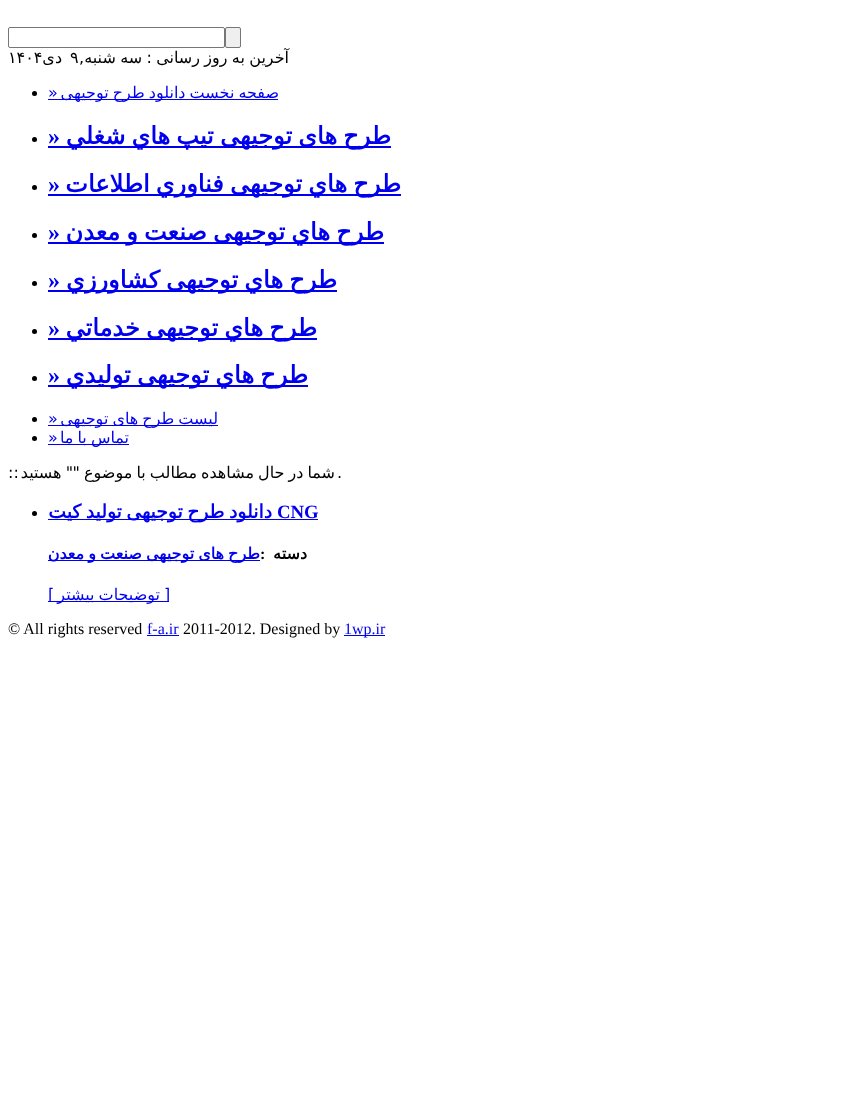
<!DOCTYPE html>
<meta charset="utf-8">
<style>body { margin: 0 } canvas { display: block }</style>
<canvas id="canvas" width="847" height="1111"></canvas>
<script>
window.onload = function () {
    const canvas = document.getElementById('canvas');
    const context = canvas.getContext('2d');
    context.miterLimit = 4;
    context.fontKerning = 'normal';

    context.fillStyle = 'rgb(255, 255, 255)';
    context.fillRect(0, 0, 847, 1111);
    context.fillStyle = 'rgb(239, 239, 239)';
    context.beginPath();
    context.roundRect(225.5, 27.5, 15, 20, 1.5);
    context.fill();
    context.strokeStyle = 'rgb(118, 118, 118)';
    context.stroke();
    context.beginPath();
    context.roundRect(8.5, 27.5, 216, 20, 1.5);
    context.stroke();
    context.fillStyle = 'rgb(0, 0, 238)';
    context.fillRect(48, 99, 230, 1);
    context.fillStyle = 'rgb(0, 0, 0)';
    context.beginPath();
    context.arc(34.5, 93.5, 2.5, 0, 2 * Math.PI);
    context.fill();
    context.fillStyle = 'rgb(0, 0, 238)';
    context.fillRect(48, 146, 343, 2);
    context.fillStyle = 'rgb(0, 0, 0)';
    context.beginPath();
    context.arc(34.5, 139.5, 2.5, 0, 2 * Math.PI);
    context.fill();
    context.fillStyle = 'rgb(0, 0, 238)';
    context.fillRect(48, 194, 353, 2);
    context.fillStyle = 'rgb(0, 0, 0)';
    context.beginPath();
    context.arc(34.5, 187.5, 2.5, 0, 2 * Math.PI);
    context.fill();
    context.fillStyle = 'rgb(0, 0, 238)';
    context.fillRect(48, 242, 336, 2);
    context.fillStyle = 'rgb(0, 0, 0)';
    context.beginPath();
    context.arc(34.5, 235.5, 2.5, 0, 2 * Math.PI);
    context.fill();
    context.fillStyle = 'rgb(0, 0, 238)';
    context.fillRect(48, 290, 289, 2);
    context.fillStyle = 'rgb(0, 0, 0)';
    context.beginPath();
    context.arc(34.5, 283.5, 2.5, 0, 2 * Math.PI);
    context.fill();
    context.fillStyle = 'rgb(0, 0, 238)';
    context.fillRect(48, 338, 269, 2);
    context.fillStyle = 'rgb(0, 0, 0)';
    context.beginPath();
    context.arc(34.5, 331.5, 2.5, 0, 2 * Math.PI);
    context.fill();
    context.fillStyle = 'rgb(0, 0, 238)';
    context.fillRect(48, 385, 260, 2);
    context.fillStyle = 'rgb(0, 0, 0)';
    context.beginPath();
    context.arc(34.5, 378.5, 2.5, 0, 2 * Math.PI);
    context.fill();
    context.fillStyle = 'rgb(0, 0, 238)';
    context.fillRect(48, 425, 170, 1);
    context.fillStyle = 'rgb(0, 0, 0)';
    context.beginPath();
    context.arc(34.5, 419.5, 2.5, 0, 2 * Math.PI);
    context.fill();
    context.fillStyle = 'rgb(0, 0, 238)';
    context.fillRect(48, 444, 81, 1);
    context.fillStyle = 'rgb(0, 0, 0)';
    context.beginPath();
    context.arc(34.5, 438.5, 2.5, 0, 2 * Math.PI);
    context.fill();
    context.fillStyle = 'rgb(0, 0, 238)';
    context.fillRect(48, 519, 224, 1);
    context.fillRect(272, 519, 46, 1);
    context.fillRect(48, 560, 212, 1);
    context.fillStyle = 'rgb(0, 0, 0)';
    context.beginPath();
    context.arc(34.5, 513.5, 2.5, 0, 2 * Math.PI);
    context.fill();
    context.fillStyle = 'rgb(0, 0, 238)';
    context.fillRect(48, 601, 112, 1);
    context.fillRect(160, 601, 9, 1);
    context.fillRect(344, 635, 41, 1);
    context.fillRect(147, 635, 32, 1);
    context.wordSpacing = '-0.75px';
    context.direction = 'rtl';
    context.font = '16px DejaVu Sans';
    context.fillStyle = 'rgb(0, 0, 0)';
    context.fillText('آخرین به روز رسانی : سه شنبه,', 289, 63);
    context.wordSpacing = '0px';
    context.direction = 'ltr';
    context.fillText('۹', 70, 63);
    context.direction = 'rtl';
    context.fillText('دی', 62, 63);
    context.direction = 'ltr';
    context.fillText('۱۴۰۴', 8, 63);
    context.wordSpacing = '-1px';
    context.direction = 'rtl';
    context.fillStyle = 'rgb(0, 0, 238)';
    context.fillText('صفحه نخست دانلود طرح توجیهی', 279, 98);
    context.wordSpacing = '0px';
    context.direction = 'ltr';
    context.fillText('»', 48, 98);
    context.wordSpacing = '-1.5px';
    context.direction = 'rtl';
    context.font = 'bold 24px DejaVu Sans';
    context.fillText('طرح های توجیهی تيپ هاي شغلي', 391, 144);
    context.wordSpacing = '0px';
    context.direction = 'ltr';
    context.font = 'bold 24px Liberation Serif';
    context.fillText('»', 48, 144);
    context.wordSpacing = '-1.5px';
    context.direction = 'rtl';
    context.font = 'bold 24px DejaVu Sans';
    context.fillText('طرح هاي توجیهی فناوري اطلاعات', 401, 192);
    context.wordSpacing = '0px';
    context.direction = 'ltr';
    context.font = 'bold 24px Liberation Serif';
    context.fillText('»', 48, 192);
    context.wordSpacing = '-1.5px';
    context.direction = 'rtl';
    context.font = 'bold 24px DejaVu Sans';
    context.fillText('طرح هاي توجیهی صنعت و معدن', 384, 240);
    context.wordSpacing = '0px';
    context.direction = 'ltr';
    context.font = 'bold 24px Liberation Serif';
    context.fillText('»', 48, 240);
    context.wordSpacing = '-1.5px';
    context.direction = 'rtl';
    context.font = 'bold 24px DejaVu Sans';
    context.fillText('طرح هاي توجیهی کشاورزي', 337, 288);
    context.wordSpacing = '0px';
    context.direction = 'ltr';
    context.font = 'bold 24px Liberation Serif';
    context.fillText('»', 48, 288);
    context.wordSpacing = '-1.5px';
    context.direction = 'rtl';
    context.font = 'bold 24px DejaVu Sans';
    context.fillText('طرح هاي توجیهی خدماتي', 317, 336);
    context.wordSpacing = '0px';
    context.direction = 'ltr';
    context.font = 'bold 24px Liberation Serif';
    context.fillText('»', 48, 336);
    context.wordSpacing = '-1.5px';
    context.direction = 'rtl';
    context.font = 'bold 24px DejaVu Sans';
    context.fillText('طرح هاي توجیهی توليدي', 308, 383);
    context.wordSpacing = '0px';
    context.direction = 'ltr';
    context.font = 'bold 24px Liberation Serif';
    context.fillText('»', 48, 383);
    context.wordSpacing = '-1px';
    context.direction = 'rtl';
    context.font = '16px DejaVu Sans';
    context.fillText('لیست طرح های توجیهی', 218, 424);
    context.wordSpacing = '0px';
    context.direction = 'ltr';
    context.fillText('»', 48, 424);
    context.wordSpacing = '-1px';
    context.direction = 'rtl';
    context.fillText('تماس با ما', 129, 443);
    context.wordSpacing = '0px';
    context.direction = 'ltr';
    context.fillText('»', 48, 443);
    context.wordSpacing = '-1px';
    context.direction = 'rtl';
    context.fillStyle = 'rgb(0, 0, 0)';
    context.fillText('شما در حال مشاهده مطالب با موضوع "', 335, 478);
    context.fillText('" هستید', 73, 478);
    context.wordSpacing = '0px';
    context.direction = 'ltr';
    context.fillText('::', 8, 478);
    context.fillText('.', 337, 478);
    context.font = 'bold 18.75px Liberation Serif';
    context.fillStyle = 'rgb(0, 0, 238)';
    context.fillText('CNG', 277, 518);
    context.wordSpacing = '-1.5px';
    context.direction = 'rtl';
    context.font = 'bold 18.75px DejaVu Sans';
    context.fillText('دانلود طرح توجیهی تولید کیت', 272, 518);
    context.wordSpacing = '0px';
    context.font = 'bold 16px DejaVu Sans';
    context.fillStyle = 'rgb(0, 0, 0)';
    context.fillText('دسته', 307, 559);
    context.direction = 'ltr';
    context.font = 'bold 16px Liberation Serif';
    context.fillText(':', 260, 559);
    context.wordSpacing = '-1px';
    context.direction = 'rtl';
    context.font = 'bold 16px DejaVu Sans';
    context.fillStyle = 'rgb(0, 0, 238)';
    context.fillText('طرح های توجیهی صنعت و معدن', 260, 559);
    context.wordSpacing = '0px';
    context.direction = 'ltr';
    context.font = '16px DejaVu Sans';
    context.fillText(']', 164, 600);
    context.wordSpacing = '-1px';
    context.direction = 'rtl';
    context.fillText('توضيحات بيشتر', 160, 600);
    context.wordSpacing = '0px';
    context.direction = 'ltr';
    context.fillText('[', 48, 600);
    context.font = '16px Liberation Serif';
    context.fillText('1wp.ir', 344, 634);
    context.fillStyle = 'rgb(0, 0, 0)';
    context.fillText('2011-2012. Designed by', 183, 634);
    context.fillStyle = 'rgb(0, 0, 238)';
    context.fillText('f-a.ir', 147, 634);
    context.fillStyle = 'rgb(0, 0, 0)';
    context.fillText('© All rights reserved', 8, 634);
};
</script>
